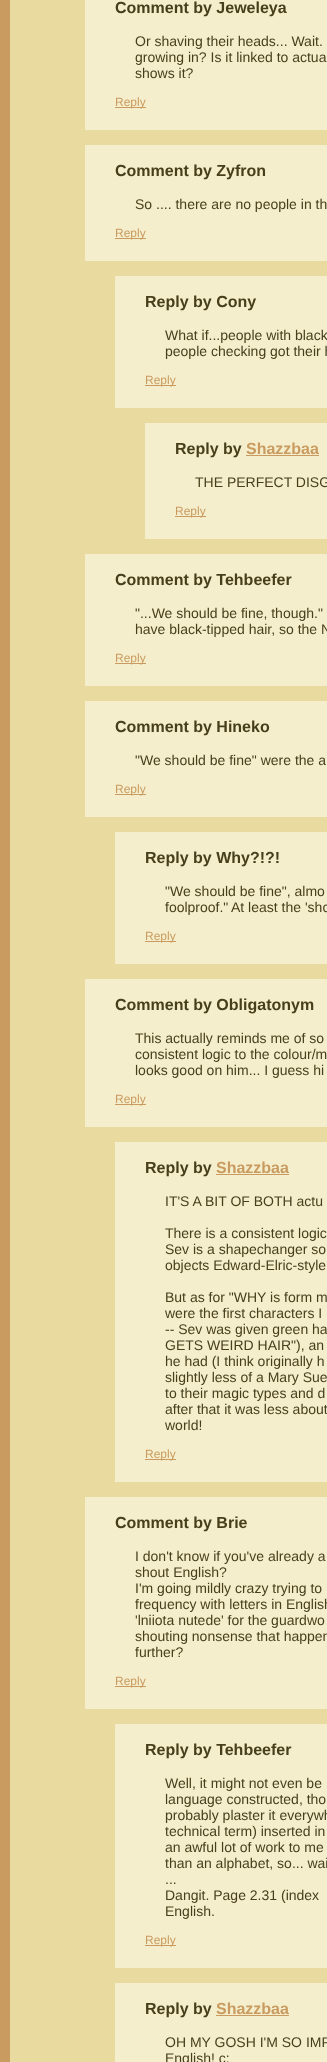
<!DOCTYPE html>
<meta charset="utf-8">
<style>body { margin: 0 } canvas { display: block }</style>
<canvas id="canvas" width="327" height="2062"></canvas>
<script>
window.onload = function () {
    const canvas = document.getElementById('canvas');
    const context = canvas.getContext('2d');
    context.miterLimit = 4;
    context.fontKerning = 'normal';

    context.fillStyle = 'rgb(233, 219, 160)';
    context.fillRect(0, 0, 327, 2062);
    context.strokeStyle = 'rgb(201, 155, 96)';
    context.lineWidth = 10;
    context.strokeRect(5, -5, 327, 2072);
    context.fillStyle = 'rgb(245, 238, 204)';
    context.fillRect(85, 0, 242, 130);
    context.fillStyle = 'rgb(201, 155, 96)';
    context.fillRect(115, 107, 31, 1);
    context.fillStyle = 'rgb(245, 238, 204)';
    context.fillRect(85, 145, 242, 116);
    context.fillStyle = 'rgb(201, 155, 96)';
    context.fillRect(115, 238, 31, 1);
    context.fillStyle = 'rgb(245, 238, 204)';
    context.fillRect(115, 276, 212, 132);
    context.fillStyle = 'rgb(201, 155, 96)';
    context.fillRect(145, 385, 31, 1);
    context.fillStyle = 'rgb(245, 238, 204)';
    context.fillRect(145, 423, 182, 116);
    context.fillStyle = 'rgb(201, 155, 96)';
    context.fillRect(246, 455, 73, 1);
    context.fillRect(175, 516, 31, 1);
    context.fillStyle = 'rgb(245, 238, 204)';
    context.fillRect(85, 554, 242, 132);
    context.fillStyle = 'rgb(201, 155, 96)';
    context.fillRect(115, 663, 31, 1);
    context.fillStyle = 'rgb(245, 238, 204)';
    context.fillRect(85, 701, 242, 116);
    context.fillStyle = 'rgb(201, 155, 96)';
    context.fillRect(115, 794, 31, 1);
    context.fillStyle = 'rgb(245, 238, 204)';
    context.fillRect(115, 832, 212, 132);
    context.fillStyle = 'rgb(201, 155, 96)';
    context.fillRect(145, 941, 31, 1);
    context.fillStyle = 'rgb(245, 238, 204)';
    context.fillRect(85, 979, 242, 148);
    context.fillStyle = 'rgb(201, 155, 96)';
    context.fillRect(115, 1104, 31, 1);
    context.fillStyle = 'rgb(245, 238, 204)';
    context.fillRect(115, 1142, 212, 340);
    context.fillStyle = 'rgb(201, 155, 96)';
    context.fillRect(216, 1174, 73, 1);
    context.fillRect(145, 1459, 31, 1);
    context.fillStyle = 'rgb(245, 238, 204)';
    context.fillRect(85, 1497, 242, 212);
    context.fillStyle = 'rgb(201, 155, 96)';
    context.fillRect(115, 1686, 31, 1);
    context.fillStyle = 'rgb(245, 238, 204)';
    context.fillRect(115, 1724, 212, 244);
    context.fillStyle = 'rgb(201, 155, 96)';
    context.fillRect(145, 1945, 31, 1);
    context.fillStyle = 'rgb(245, 238, 204)';
    context.fillRect(115, 1983, 212, 79);
    context.fillStyle = 'rgb(201, 155, 96)';
    context.fillRect(216, 2015, 73, 1);
    context.font = 'bold 16px Liberation Sans';
    context.fillStyle = 'rgb(71, 63, 27)';
    context.fillText('Comment by Jeweleya', 115, 13);
    context.font = '14px Liberation Sans';
    context.fillText('Or shaving their heads... Wait.', 135, 46);
    context.fillText('growing in? Is it linked to actua', 135, 62);
    context.fillText('shows it?', 135, 78);
    context.font = '12px Liberation Sans';
    context.fillStyle = 'rgb(201, 155, 96)';
    context.fillText('Reply', 115, 106);
    context.font = 'bold 16px Liberation Sans';
    context.fillStyle = 'rgb(71, 63, 27)';
    context.fillText('Comment by Zyfron', 115, 176);
    context.font = '14px Liberation Sans';
    context.fillText('So .... there are no people in th', 135, 209);
    context.font = '12px Liberation Sans';
    context.fillStyle = 'rgb(201, 155, 96)';
    context.fillText('Reply', 115, 237);
    context.font = 'bold 16px Liberation Sans';
    context.fillStyle = 'rgb(71, 63, 27)';
    context.fillText('Reply by Cony', 145, 307);
    context.font = '14px Liberation Sans';
    context.fillText('What if...people with black', 165, 340);
    context.fillText('people checking got their h', 165, 356);
    context.font = '12px Liberation Sans';
    context.fillStyle = 'rgb(201, 155, 96)';
    context.fillText('Reply', 145, 384);
    context.font = 'bold 16px Liberation Sans';
    context.fillStyle = 'rgb(71, 63, 27)';
    context.fillText('Reply by', 175, 454);
    context.fillStyle = 'rgb(201, 155, 96)';
    context.fillText('Shazzbaa', 246, 454);
    context.font = '14px Liberation Sans';
    context.fillStyle = 'rgb(71, 63, 27)';
    context.fillText('THE PERFECT DISG', 195, 487);
    context.font = '12px Liberation Sans';
    context.fillStyle = 'rgb(201, 155, 96)';
    context.fillText('Reply', 175, 515);
    context.font = 'bold 16px Liberation Sans';
    context.fillStyle = 'rgb(71, 63, 27)';
    context.fillText('Comment by Tehbeefer', 115, 585);
    context.font = '14px Liberation Sans';
    context.fillText('"...We should be fine, though."', 135, 618);
    context.fillText('have black-tipped hair, so the N', 135, 634);
    context.font = '12px Liberation Sans';
    context.fillStyle = 'rgb(201, 155, 96)';
    context.fillText('Reply', 115, 662);
    context.font = 'bold 16px Liberation Sans';
    context.fillStyle = 'rgb(71, 63, 27)';
    context.fillText('Comment by Hineko', 115, 732);
    context.font = '14px Liberation Sans';
    context.fillText('"We should be fine" were the a', 135, 765);
    context.font = '12px Liberation Sans';
    context.fillStyle = 'rgb(201, 155, 96)';
    context.fillText('Reply', 115, 793);
    context.font = 'bold 16px Liberation Sans';
    context.fillStyle = 'rgb(71, 63, 27)';
    context.fillText('Reply by Why?!?!', 145, 863);
    context.font = '14px Liberation Sans';
    context.fillText('"We should be fine", almo', 165, 896);
    context.fillText('foolproof."', 165, 912);
    context.fillText('At least the \'sho', 231, 912);
    context.font = '12px Liberation Sans';
    context.fillStyle = 'rgb(201, 155, 96)';
    context.fillText('Reply', 145, 940);
    context.font = 'bold 16px Liberation Sans';
    context.fillStyle = 'rgb(71, 63, 27)';
    context.fillText('Comment by Obligatonym', 115, 1010);
    context.font = '14px Liberation Sans';
    context.fillText('This actually reminds me of so', 135, 1043);
    context.fillText('consistent logic to the colour/m', 135, 1059);
    context.fillText('looks good on him... I guess hi', 135, 1075);
    context.font = '12px Liberation Sans';
    context.fillStyle = 'rgb(201, 155, 96)';
    context.fillText('Reply', 115, 1103);
    context.font = 'bold 16px Liberation Sans';
    context.fillStyle = 'rgb(71, 63, 27)';
    context.fillText('Reply by', 145, 1173);
    context.fillStyle = 'rgb(201, 155, 96)';
    context.fillText('Shazzbaa', 216, 1173);
    context.font = '14px Liberation Sans';
    context.fillStyle = 'rgb(71, 63, 27)';
    context.fillText('IT\'S A BIT OF BOTH actu', 165, 1206);
    context.fillText('There is a consistent logic', 165, 1238);
    context.fillText('Sev is a shapechanger so', 165, 1254);
    context.fillText('objects Edward-Elric-style', 165, 1270);
    context.fillText('But as for "WHY is form m', 165, 1302);
    context.fillText('were the first characters I', 165, 1318);
    context.fillText('-- Sev was given green ha', 165, 1334);
    context.fillText('GETS WEIRD HAIR"), an', 165, 1350);
    context.fillText('he had (I think originally h', 165, 1366);
    context.fillText('slightly less of a Mary Sue', 165, 1382);
    context.fillText('to their magic types and d', 165, 1398);
    context.fillText('after that it was less about', 165, 1414);
    context.fillText('world!', 165, 1430);
    context.font = '12px Liberation Sans';
    context.fillStyle = 'rgb(201, 155, 96)';
    context.fillText('Reply', 145, 1458);
    context.font = 'bold 16px Liberation Sans';
    context.fillStyle = 'rgb(71, 63, 27)';
    context.fillText('Comment by Brie', 115, 1528);
    context.font = '14px Liberation Sans';
    context.fillText('I don\'t know if you\'ve already a', 135, 1561);
    context.fillText('shout English?', 135, 1577);
    context.fillText('I\'m going mildly crazy trying to', 135, 1593);
    context.fillText('frequency with letters in English', 135, 1609);
    context.fillText('\'lniiota nutede\' for the guardwo', 135, 1625);
    context.fillText('shouting nonsense that happen', 135, 1641);
    context.fillText('further?', 135, 1657);
    context.font = '12px Liberation Sans';
    context.fillStyle = 'rgb(201, 155, 96)';
    context.fillText('Reply', 115, 1685);
    context.font = 'bold 16px Liberation Sans';
    context.fillStyle = 'rgb(71, 63, 27)';
    context.fillText('Reply by Tehbeefer', 145, 1755);
    context.font = '14px Liberation Sans';
    context.fillText('Well, it might not even be', 165, 1788);
    context.fillText('language constructed, tho', 165, 1804);
    context.fillText('probably plaster it everywh', 165, 1820);
    context.fillText('technical term) inserted in', 165, 1836);
    context.fillText('an awful lot of work to me', 165, 1852);
    context.fillText('than an alphabet, so... wai', 165, 1868);
    context.fillText('...', 165, 1884);
    context.fillText('Dangit. Page 2.31 (index', 165, 1900);
    context.fillText('English.', 165, 1916);
    context.font = '12px Liberation Sans';
    context.fillStyle = 'rgb(201, 155, 96)';
    context.fillText('Reply', 145, 1944);
    context.font = 'bold 16px Liberation Sans';
    context.fillStyle = 'rgb(71, 63, 27)';
    context.fillText('Reply by', 145, 2014);
    context.fillStyle = 'rgb(201, 155, 96)';
    context.fillText('Shazzbaa', 216, 2014);
    context.font = '14px Liberation Sans';
    context.fillStyle = 'rgb(71, 63, 27)';
    context.fillText('OH MY GOSH I\'M SO IMP', 165, 2047);
    context.fillText('English! c:', 165, 2063);
};
</script>
